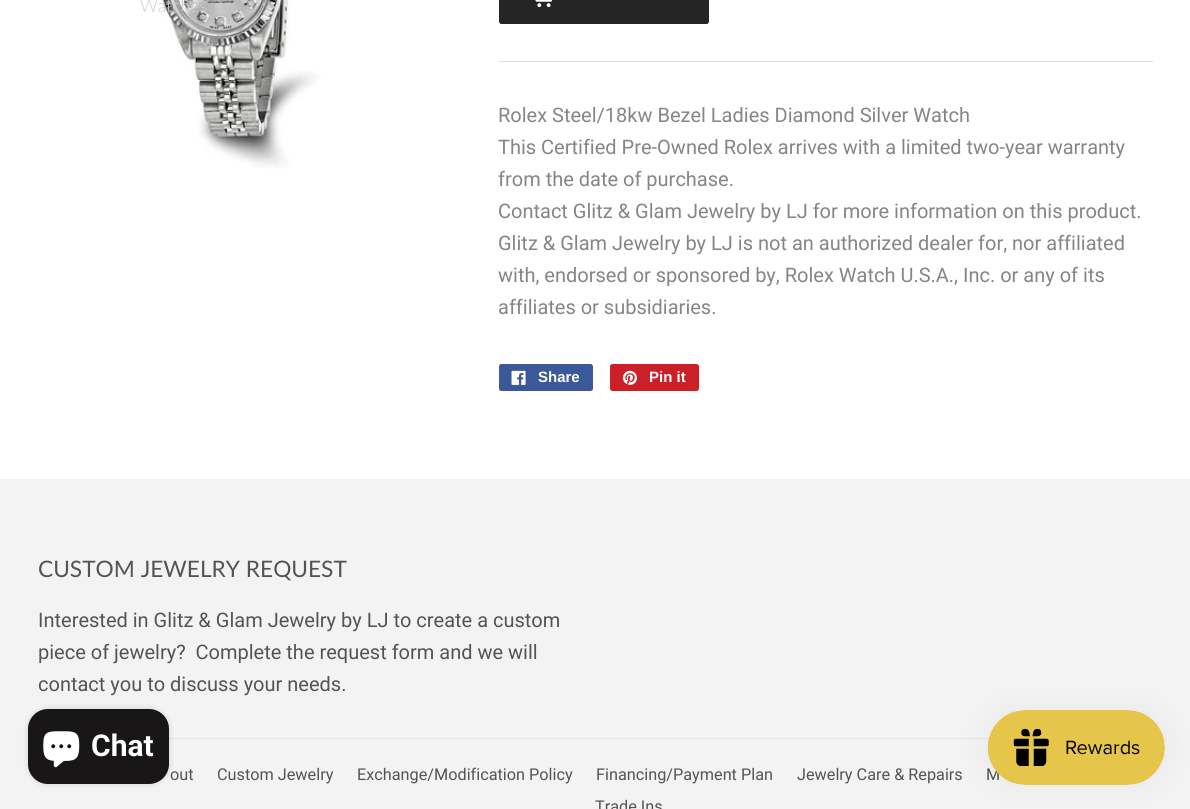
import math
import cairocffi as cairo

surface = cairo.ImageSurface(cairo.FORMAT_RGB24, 1190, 809)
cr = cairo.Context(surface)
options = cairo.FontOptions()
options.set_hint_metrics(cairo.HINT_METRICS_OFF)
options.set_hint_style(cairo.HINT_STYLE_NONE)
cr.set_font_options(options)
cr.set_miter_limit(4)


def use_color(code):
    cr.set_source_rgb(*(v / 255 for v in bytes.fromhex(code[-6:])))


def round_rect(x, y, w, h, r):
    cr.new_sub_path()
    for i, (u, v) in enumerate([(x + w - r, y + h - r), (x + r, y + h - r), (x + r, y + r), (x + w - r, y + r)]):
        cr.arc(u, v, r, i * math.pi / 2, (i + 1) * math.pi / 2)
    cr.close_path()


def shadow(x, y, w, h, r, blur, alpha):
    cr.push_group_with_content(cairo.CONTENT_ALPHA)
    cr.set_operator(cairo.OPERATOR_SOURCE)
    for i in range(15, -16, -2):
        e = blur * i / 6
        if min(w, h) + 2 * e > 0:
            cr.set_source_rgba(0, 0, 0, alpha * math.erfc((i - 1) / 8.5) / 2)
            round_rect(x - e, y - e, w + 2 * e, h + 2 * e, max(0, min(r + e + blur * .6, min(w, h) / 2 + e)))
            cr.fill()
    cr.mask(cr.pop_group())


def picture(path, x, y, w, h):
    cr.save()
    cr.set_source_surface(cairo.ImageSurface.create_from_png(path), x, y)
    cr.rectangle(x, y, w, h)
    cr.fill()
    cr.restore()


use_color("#ffffff")
cr.paint()
picture("img1.png", 162, 0, 159, 169)
cr.select_font_face("Lato Light")
cr.set_font_size(17.5)
use_color("#cecece")
cr.move_to(140, 12)
cr.show_text("Watches")
use_color("#252525")
round_rect(499, -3, 210, 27, 2.5)
cr.fill()
picture("img2.png", 535, 0, 17, 8)
use_color("#dedede")
cr.rectangle(499, 61, 654, 1)
cr.fill()
cr.select_font_face("Roboto")
cr.set_font_size(20)
use_color("#858585")
cr.move_to(498, 122)
cr.show_text("Rolex Steel/18kw Bezel Ladies Diamond Silver Watch")
cr.move_to(498, 154)
cr.show_text("This Certified Pre-Owned Rolex arrives with a limited two-year warranty")
cr.move_to(498, 186)
cr.show_text("from the date of purchase.")
cr.move_to(498, 218)
cr.show_text("Contact Glitz & Glam Jewelry by LJ for more information on this product.")
cr.move_to(498, 250)
cr.show_text("Glitz & Glam Jewelry by LJ is not an authorized dealer for, nor affiliated")
cr.move_to(498, 282)
cr.show_text("with, endorsed or sponsored by, Rolex Watch U.S.A., Inc. or any of its")
cr.move_to(498, 314)
cr.show_text("affiliates or subsidiaries.")
use_color("#3b5998")
round_rect(499, 364, 94, 27, 2.5)
cr.fill()
picture("img3.png", 511, 370, 15, 15)
cr.select_font_face("Liberation Sans", cairo.FONT_SLANT_NORMAL, cairo.FONT_WEIGHT_BOLD)
cr.set_font_size(15)
use_color("#ffffff")
cr.move_to(538, 382)
cr.show_text("Share")
use_color("#cb2027")
round_rect(610, 364, 89, 27, 2.5)
cr.fill()
picture("img4.png", 622, 370, 15, 15)
use_color("#ffffff")
cr.move_to(649, 382)
cr.show_text("Pin it")
use_color("#f3f3f3")
cr.rectangle(0, 479, 1190, 330)
cr.fill()
cr.select_font_face("Lato")
cr.set_font_size(22.7)
use_color("#545454")
cr.move_to(38, 577)
cr.show_text("CUSTOM JEWELRY REQUEST")
cr.select_font_face("Roboto")
cr.set_font_size(20)
cr.move_to(38, 627)
cr.show_text("Interested in Glitz & Glam Jewelry by LJ to create a custom")
cr.move_to(38, 659)
cr.show_text("piece of jewelry?  Complete the request form and we will")
cr.move_to(38, 691)
cr.show_text("contact you to discuss your needs.")
use_color("#e6e6e6")
cr.rectangle(169, 738, 820, 1)
cr.fill()
cr.set_font_size(16.25)
use_color("#545454")
cr.move_to(170, 780)
cr.show_text("out")
cr.move_to(217, 780)
cr.show_text("Custom Jewelry")
cr.move_to(357, 780)
cr.show_text("Exchange/Modification Policy")
cr.move_to(596, 780)
cr.show_text("Financing/Payment Plan")
cr.move_to(797, 780)
cr.show_text("Jewelry Care & Repairs")
cr.move_to(986, 780)
cr.show_text("M")
cr.move_to(595, 812)
cr.show_text("Trade Ins")
use_color("#000000")
shadow(988, 710, 177, 75, 37.5, 15.5, 0.05)
picture("img5.png", 987, 710, 178, 75)
shadow(28, 709, 141, 75, 20, 3, 0.15)
use_color("#181616")
round_rect(28, 709, 141, 75, 20)
cr.fill()
picture("img6.png", 43, 731, 37, 37)
cr.select_font_face("Roboto", cairo.FONT_SLANT_NORMAL, cairo.FONT_WEIGHT_BOLD)
cr.set_font_size(30)
use_color("#ffffff")
cr.move_to(91, 756)
cr.show_text("Chat")
surface.write_to_png("result.png")
